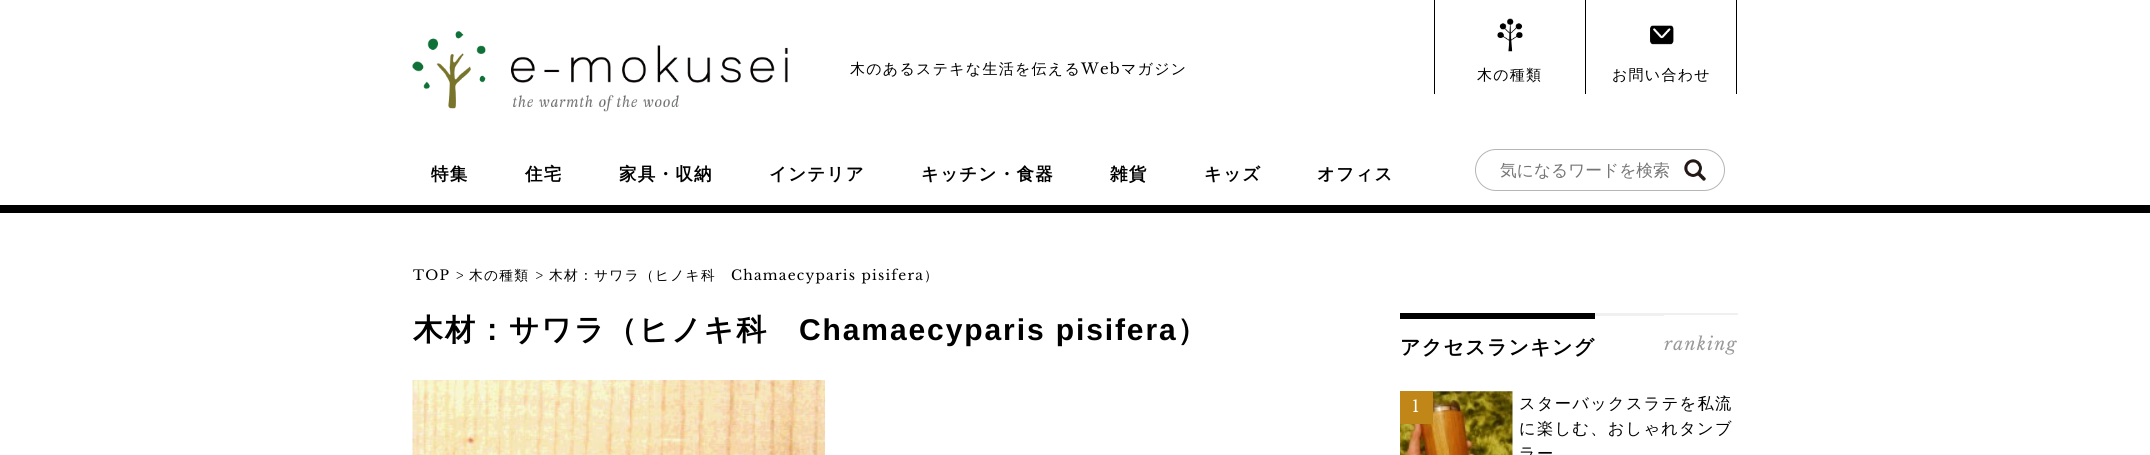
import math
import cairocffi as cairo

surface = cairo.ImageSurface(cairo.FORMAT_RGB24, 2150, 455)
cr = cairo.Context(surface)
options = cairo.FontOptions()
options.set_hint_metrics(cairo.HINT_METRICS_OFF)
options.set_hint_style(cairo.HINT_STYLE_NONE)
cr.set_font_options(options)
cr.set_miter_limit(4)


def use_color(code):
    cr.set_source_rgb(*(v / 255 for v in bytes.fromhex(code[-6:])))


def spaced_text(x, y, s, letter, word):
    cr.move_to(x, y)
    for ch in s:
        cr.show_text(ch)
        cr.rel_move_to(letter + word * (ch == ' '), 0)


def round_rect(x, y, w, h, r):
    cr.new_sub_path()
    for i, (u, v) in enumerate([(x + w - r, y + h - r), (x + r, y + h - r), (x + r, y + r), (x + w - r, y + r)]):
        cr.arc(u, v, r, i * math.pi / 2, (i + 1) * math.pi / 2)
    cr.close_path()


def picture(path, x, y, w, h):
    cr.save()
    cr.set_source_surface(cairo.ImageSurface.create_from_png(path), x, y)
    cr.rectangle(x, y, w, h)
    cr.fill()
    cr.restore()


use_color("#ffffff")
cr.paint()
picture("img1.png", 412, 31, 376, 81)
cr.select_font_face("WenQuanYi Zen Hei Medium")
cr.set_font_size(15)
use_color("#000000")
spaced_text(850, 74, "木のあるステキな生活を伝える", 1.25, 0)
cr.select_font_face("Libre Baskerville")
spaced_text(1081, 74, "Web", 1.25, 0)
cr.select_font_face("WenQuanYi Zen Hei Medium")
spaced_text(1121, 74, "マガジン", 1.25, 0)
picture("img2.png", 1497, 18, 26, 34)
cr.rectangle(1434, 0, 1, 94)
cr.fill()
spaced_text(1477, 80, "木の種類", 1.25, 0)
picture("img3.png", 1650, 25, 24, 20)
cr.rectangle(1736, 0, 1, 94)
cr.fill()
cr.rectangle(1585, 0, 1, 94)
cr.fill()
spaced_text(1612, 80, "お問い合わせ", 1.25, 0)
cr.rectangle(0, 205, 2150, 8)
cr.fill()
cr.select_font_face("WenQuanYi Zen Hei", cairo.FONT_SLANT_NORMAL, cairo.FONT_WEIGHT_BOLD)
cr.set_font_size(17.5)
spaced_text(431, 180, "特集", 1.25, 0)
spaced_text(525, 180, "住宅", 1.25, 0)
spaced_text(619, 180, "家具・収納", 1.25, 0)
spaced_text(769, 180, "インテリア", 1.25, 0)
spaced_text(921, 180, "キッチン・食器", 1.25, 0)
spaced_text(1110, 180, "雑貨", 1.25, 0)
spaced_text(1204, 180, "キッズ", 1.25, 0)
spaced_text(1317, 180, "オフィス", 1.25, 0)
round_rect(1475.5, 149.5, 249, 41, 20.5)
use_color("#b5b5b5")
cr.set_line_width(1)
cr.stroke()
cr.select_font_face("WenQuanYi Zen Hei Medium")
cr.set_font_size(16.75)
use_color("#757575")
cr.move_to(1500, 176)
cr.show_text("気になるワードを検索")
picture("img4.png", 1684, 159, 22, 22)
cr.select_font_face("Libre Baskerville")
cr.set_font_size(13.75)
use_color("#000000")
spaced_text(413, 280, "TOP >", 1.25, 0)
cr.select_font_face("WenQuanYi Zen Hei Medium")
spaced_text(469, 280, "木の種類", 1.25, 0)
cr.select_font_face("Libre Baskerville")
spaced_text(535, 280, ">", 1.25, 0)
cr.select_font_face("WenQuanYi Zen Hei Medium")
spaced_text(549, 280, "木材：サワラ（ヒノキ科", 1.25, 0)
cr.select_font_face("Libre Baskerville")
spaced_text(731, 280, "Chamaecyparis pisifera", 1.25, 0)
cr.select_font_face("WenQuanYi Zen Hei Medium")
spaced_text(924, 280, "）", 1.25, 0)
cr.select_font_face("WenQuanYi Zen Hei", cairo.FONT_SLANT_NORMAL, cairo.FONT_WEIGHT_BOLD)
cr.set_font_size(30)
spaced_text(413, 340, "木材：サワラ（ヒノキ科", 1.9, 0)
cr.select_font_face("Liberation Sans", cairo.FONT_SLANT_NORMAL, cairo.FONT_WEIGHT_BOLD)
spaced_text(799, 340, "Chamaecyparis pisifera", 1.9, 0)
cr.select_font_face("WenQuanYi Zen Hei", cairo.FONT_SLANT_NORMAL, cairo.FONT_WEIGHT_BOLD)
spaced_text(1177, 340, "）", 1.9, 0)
picture("img5.png", 412, 380, 413, 75)
use_color("#f0f0f0")
cr.rectangle(1595, 313, 143, 3)
cr.fill()
use_color("#000000")
cr.rectangle(1400, 313, 195, 6)
cr.fill()
cr.set_font_size(20)
spaced_text(1400, 354, "アクセスランキング", 1.25, 0)
use_color("#ffffff")
cr.rectangle(1664, 315, 74, 1)
cr.fill()
cr.select_font_face("Libre Baskerville", cairo.FONT_SLANT_ITALIC)
cr.set_font_size(17.5)
use_color("#999999")
spaced_text(1664, 350, "ranking", 1.25, 0)
picture("img6.png", 1400, 391, 113, 64)
cr.select_font_face("WenQuanYi Zen Hei Medium")
cr.set_font_size(16.25)
use_color("#000000")
spaced_text(1519, 409, "スターバックスラテを私流", 1.25, 0)
use_color("#c08718")
cr.rectangle(1400, 391, 33, 33)
cr.fill()
cr.select_font_face("Libre Baskerville")
use_color("#ffffff")
spaced_text(1412, 412, "1", 1.25, 0)
cr.select_font_face("WenQuanYi Zen Hei Medium")
use_color("#000000")
spaced_text(1519, 434, "に楽しむ、おしゃれタンブ", 1.25, 0)
spaced_text(1519, 459, "ラー", 1.25, 0)
surface.write_to_png("result.png")
